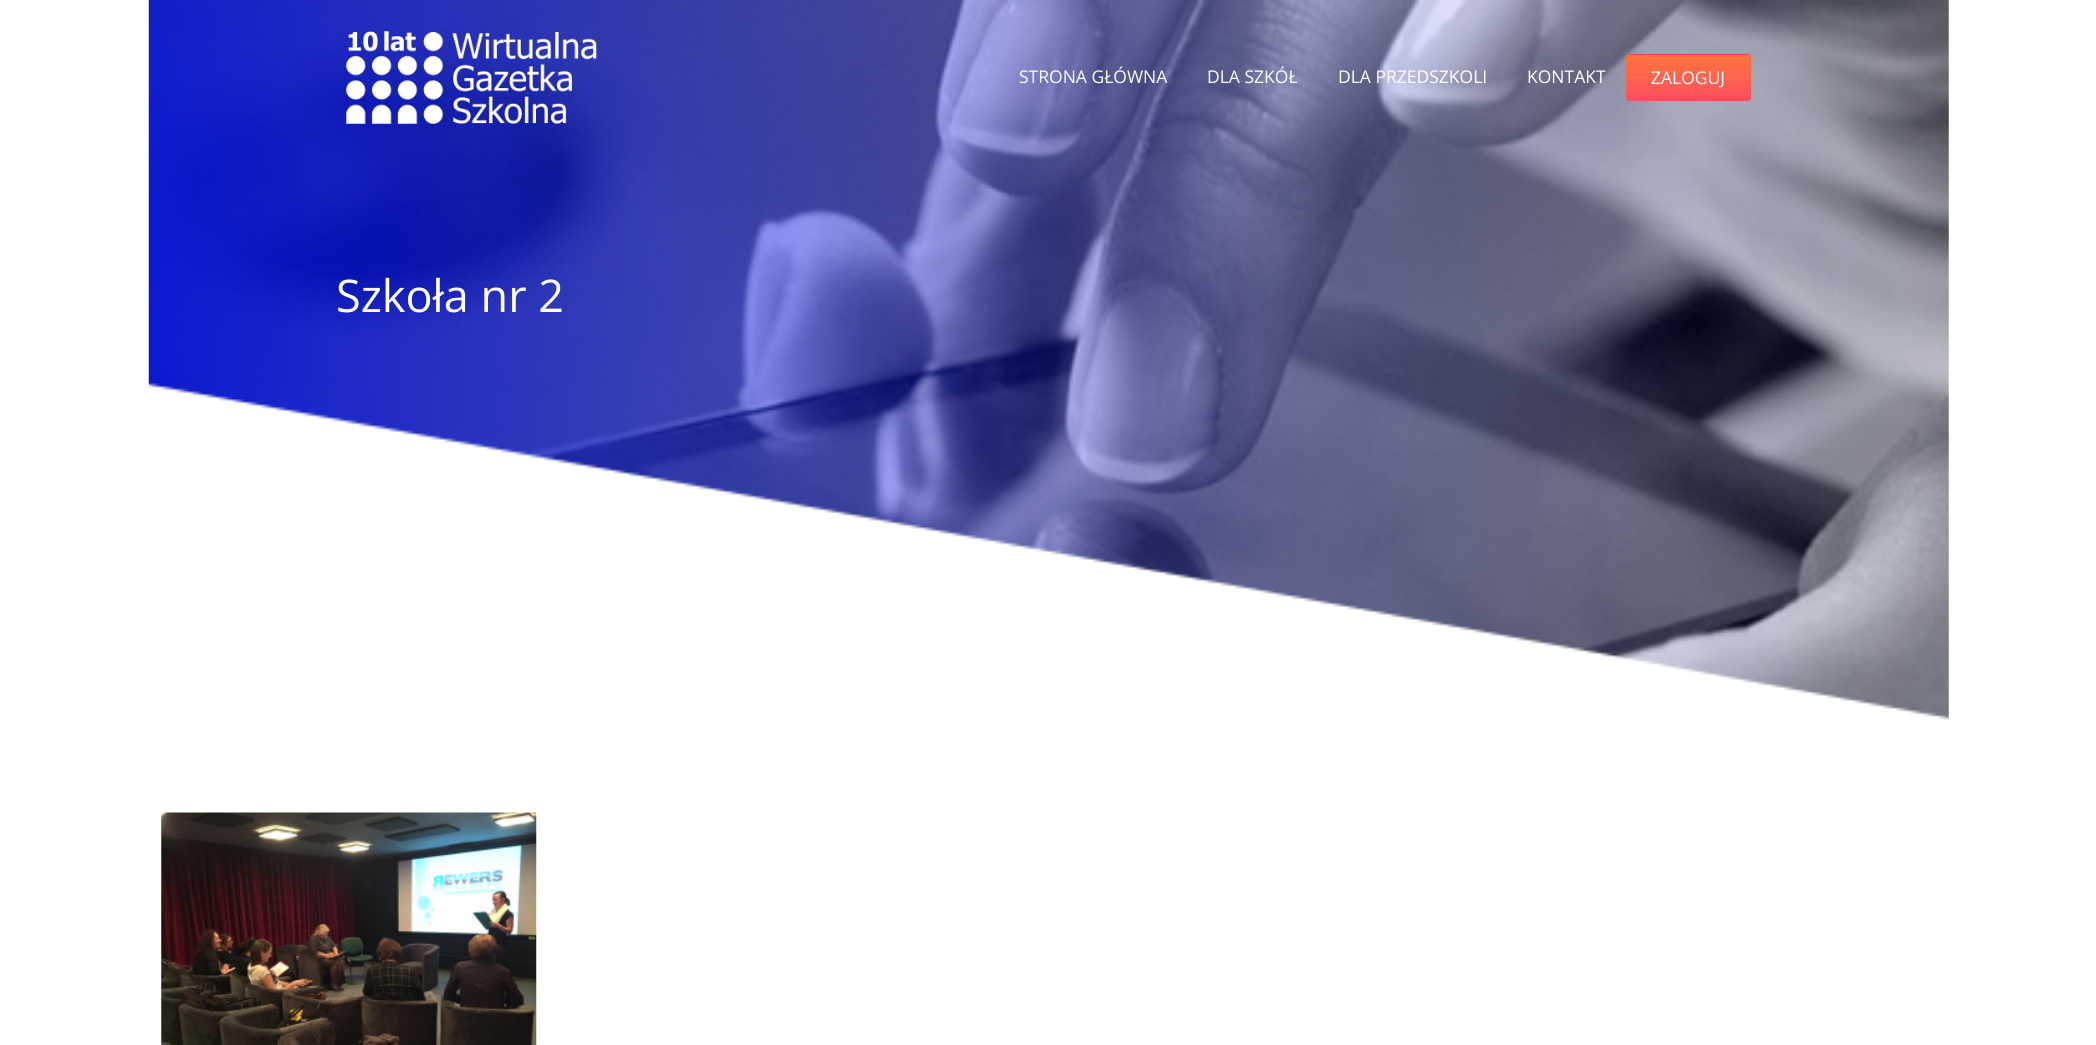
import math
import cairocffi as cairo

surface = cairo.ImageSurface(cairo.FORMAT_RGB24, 2096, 1045)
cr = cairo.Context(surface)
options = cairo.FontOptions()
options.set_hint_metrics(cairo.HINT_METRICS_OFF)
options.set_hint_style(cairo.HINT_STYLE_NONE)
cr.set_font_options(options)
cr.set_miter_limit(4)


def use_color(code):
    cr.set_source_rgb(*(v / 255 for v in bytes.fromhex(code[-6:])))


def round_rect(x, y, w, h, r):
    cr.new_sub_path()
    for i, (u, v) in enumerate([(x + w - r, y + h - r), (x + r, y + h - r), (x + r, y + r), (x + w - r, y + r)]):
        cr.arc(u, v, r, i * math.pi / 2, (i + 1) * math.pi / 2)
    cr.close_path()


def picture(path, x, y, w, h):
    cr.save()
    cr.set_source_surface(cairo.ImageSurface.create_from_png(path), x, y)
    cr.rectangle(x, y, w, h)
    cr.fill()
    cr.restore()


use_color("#ffffff")
cr.paint()
picture("img1.png", 148, 0, 1801, 720)
picture("img2.png", 346, 31, 251, 93)
cr.select_font_face("Open Sans")
cr.set_font_size(17.5)
use_color("#ffffff")
cr.move_to(1019, 83)
cr.show_text("STRONA GŁÓWNA")
cr.move_to(1207, 83)
cr.show_text("DLA SZKÓŁ")
cr.move_to(1338, 83)
cr.show_text("DLA PRZEDSZKOLI")
cr.move_to(1527, 83)
cr.show_text("KONTAKT")
use_color("#fc6f42")
round_rect(1626, 54, 125, 47, 4)
cr.fill()
picture("img3.png", 1626, 53, 126, 49)
use_color("#ffffff")
cr.move_to(1651, 84)
cr.show_text("ZALOGUJ")
cr.set_font_size(45)
cr.move_to(336, 312)
cr.show_text("Szkoła nr 2")
picture("img4.png", 161, 812, 376, 233)
surface.write_to_png("result.png")
